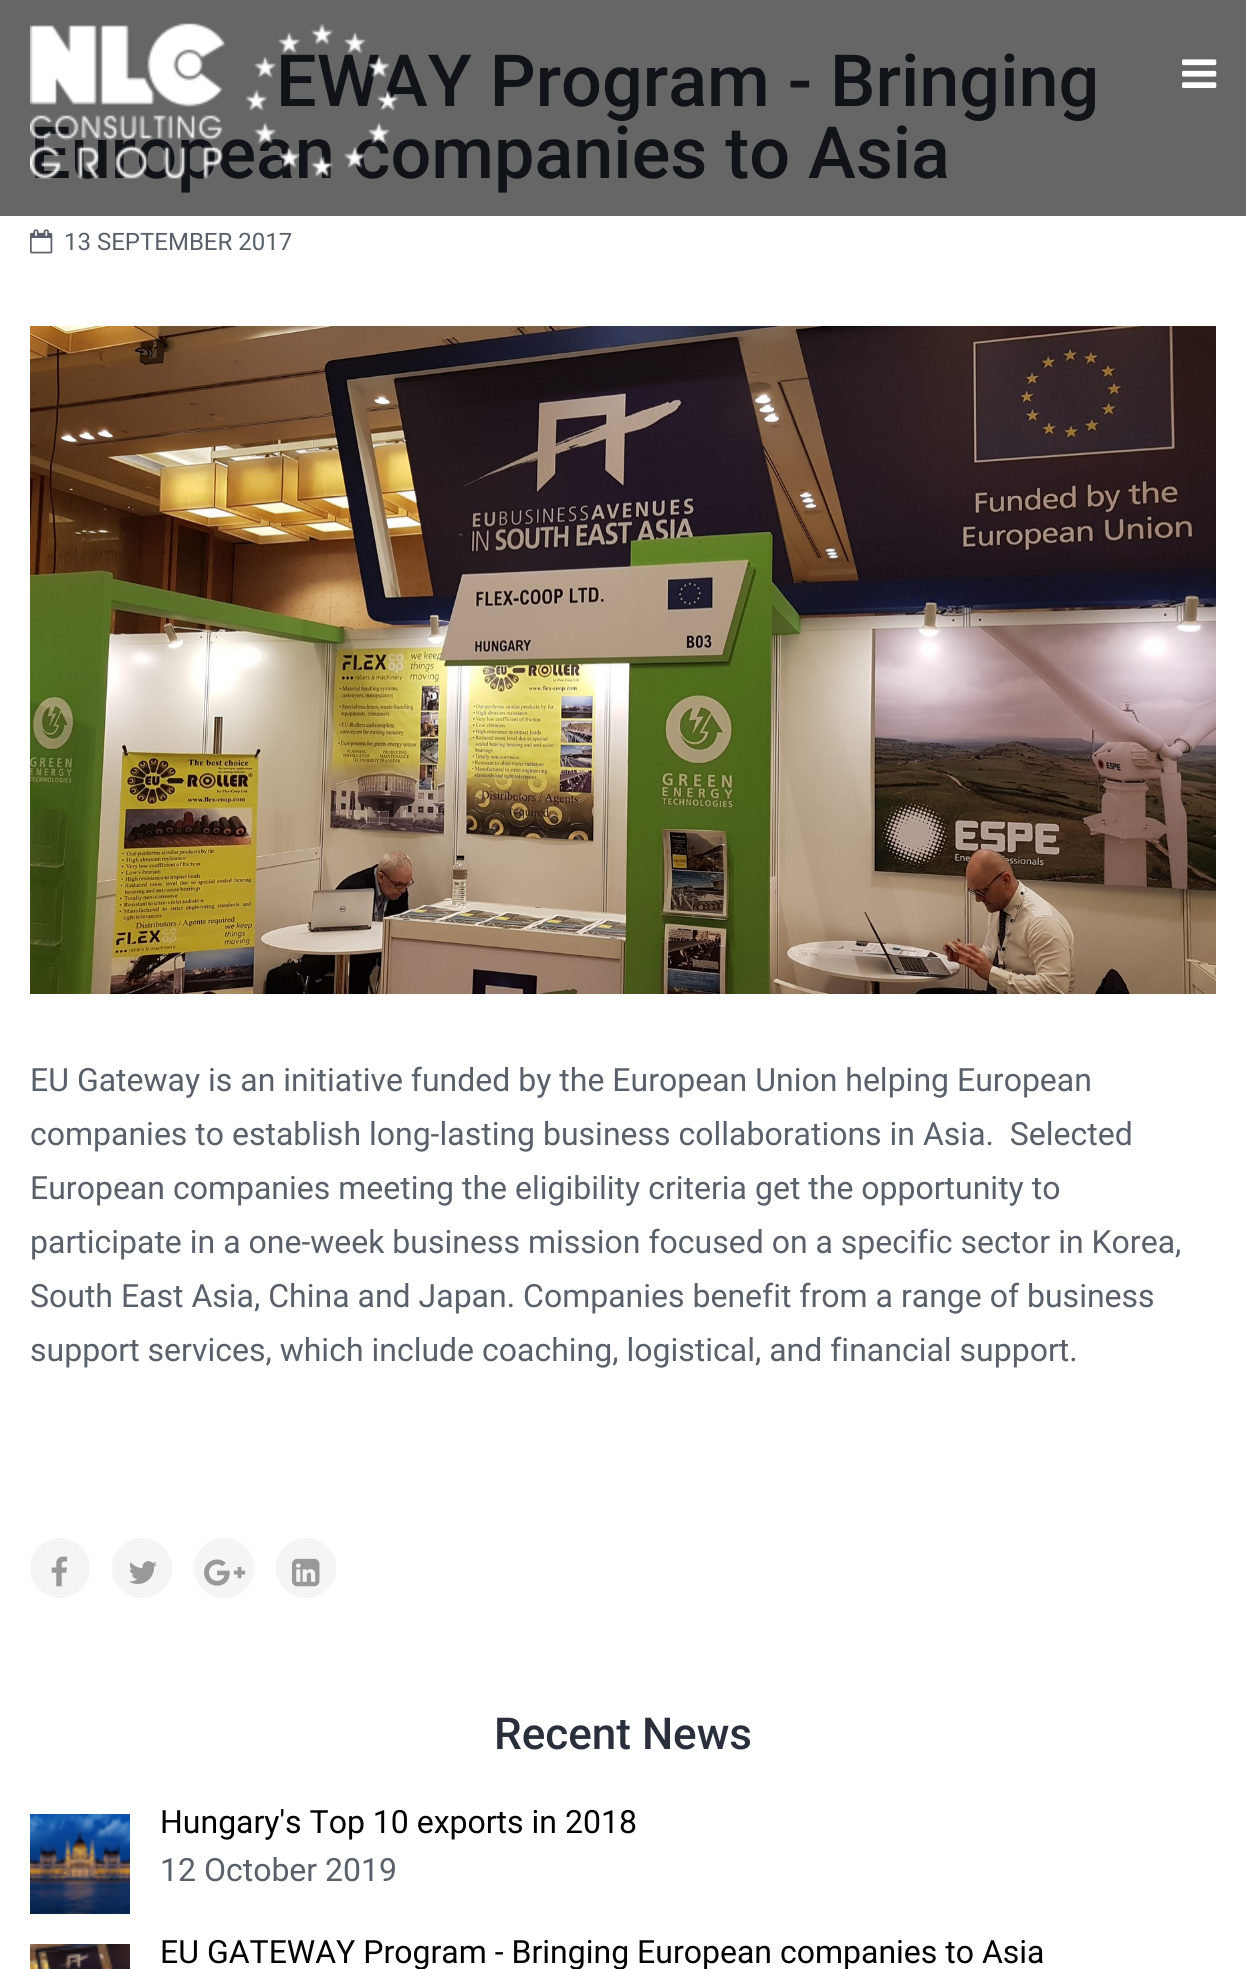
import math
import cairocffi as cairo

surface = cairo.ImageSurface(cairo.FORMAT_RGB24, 1246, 1969)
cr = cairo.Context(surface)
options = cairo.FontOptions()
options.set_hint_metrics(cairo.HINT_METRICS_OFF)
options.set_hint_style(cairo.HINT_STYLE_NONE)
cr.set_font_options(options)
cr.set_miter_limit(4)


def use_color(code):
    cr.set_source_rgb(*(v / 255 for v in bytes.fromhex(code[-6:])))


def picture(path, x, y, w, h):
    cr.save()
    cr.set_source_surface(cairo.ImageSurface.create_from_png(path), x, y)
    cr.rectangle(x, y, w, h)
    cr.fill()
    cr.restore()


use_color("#ffffff")
cr.paint()
use_color("#666666")
cr.rectangle(0, 0, 1246, 216)
cr.fill()
cr.select_font_face("Roboto Medium")
cr.set_font_size(72)
use_color("#101318")
cr.move_to(276, 106)
cr.show_text("EWAY Program - Bringing")
cr.move_to(30, 178)
cr.show_text("European companies to Asia")
picture("img1.png", 30, 23, 368, 156)
picture("img2.png", 1182, 59, 35, 29)
picture("img3.png", 30, 229, 23, 25)
cr.select_font_face("Roboto")
cr.set_font_size(24)
use_color("#59606a")
cr.move_to(64, 250)
cr.show_text("13 SEPTEMBER 2017")
picture("img4.png", 30, 326, 1186, 668)
cr.set_font_size(32)
cr.move_to(30, 1091)
cr.show_text("EU Gateway is an initiative funded by the European Union helping European")
cr.move_to(30, 1145)
cr.show_text("companies to establish long-lasting business collaborations in Asia.  Selected")
cr.move_to(30, 1199)
cr.show_text("European companies meeting the eligibility criteria get the opportunity to")
cr.move_to(30, 1253)
cr.show_text("participate in a one-week business mission focused on a specific sector in Korea,")
cr.move_to(30, 1307)
cr.show_text("South East Asia, China and Japan. Companies benefit from a range of business")
cr.move_to(30, 1361)
cr.show_text("support services, which include coaching, logistical, and financial support.")
use_color("#f5f5f5")
cr.new_path()
cr.arc(60, 1568, 30, 0, 2 * math.pi)
cr.fill()
picture("img5.png", 51, 1556, 17, 31)
cr.arc(142, 1568, 30, 0, 2 * math.pi)
cr.fill()
picture("img6.png", 129, 1561, 28, 23)
cr.arc(224, 1568, 30, 0, 2 * math.pi)
cr.fill()
picture("img7.png", 204, 1559, 42, 27)
cr.arc(306, 1568, 30, 0, 2 * math.pi)
cr.fill()
picture("img8.png", 292, 1558, 28, 29)
cr.select_font_face("Roboto Medium")
cr.set_font_size(44)
use_color("#292f3b")
cr.move_to(494, 1749)
cr.show_text("Recent News")
picture("img9.png", 30, 1814, 100, 100)
cr.select_font_face("Roboto")
cr.set_font_size(32)
use_color("#000000")
cr.move_to(160, 1833)
cr.show_text("Hungary's Top 10 exports in 2018")
use_color("#59606a")
cr.move_to(160, 1881)
cr.show_text("12 October 2019")
picture("img10.png", 30, 1944, 100, 25)
use_color("#000000")
cr.move_to(160, 1963)
cr.show_text("EU GATEWAY Program - Bringing European companies to Asia")
surface.write_to_png("result.png")
